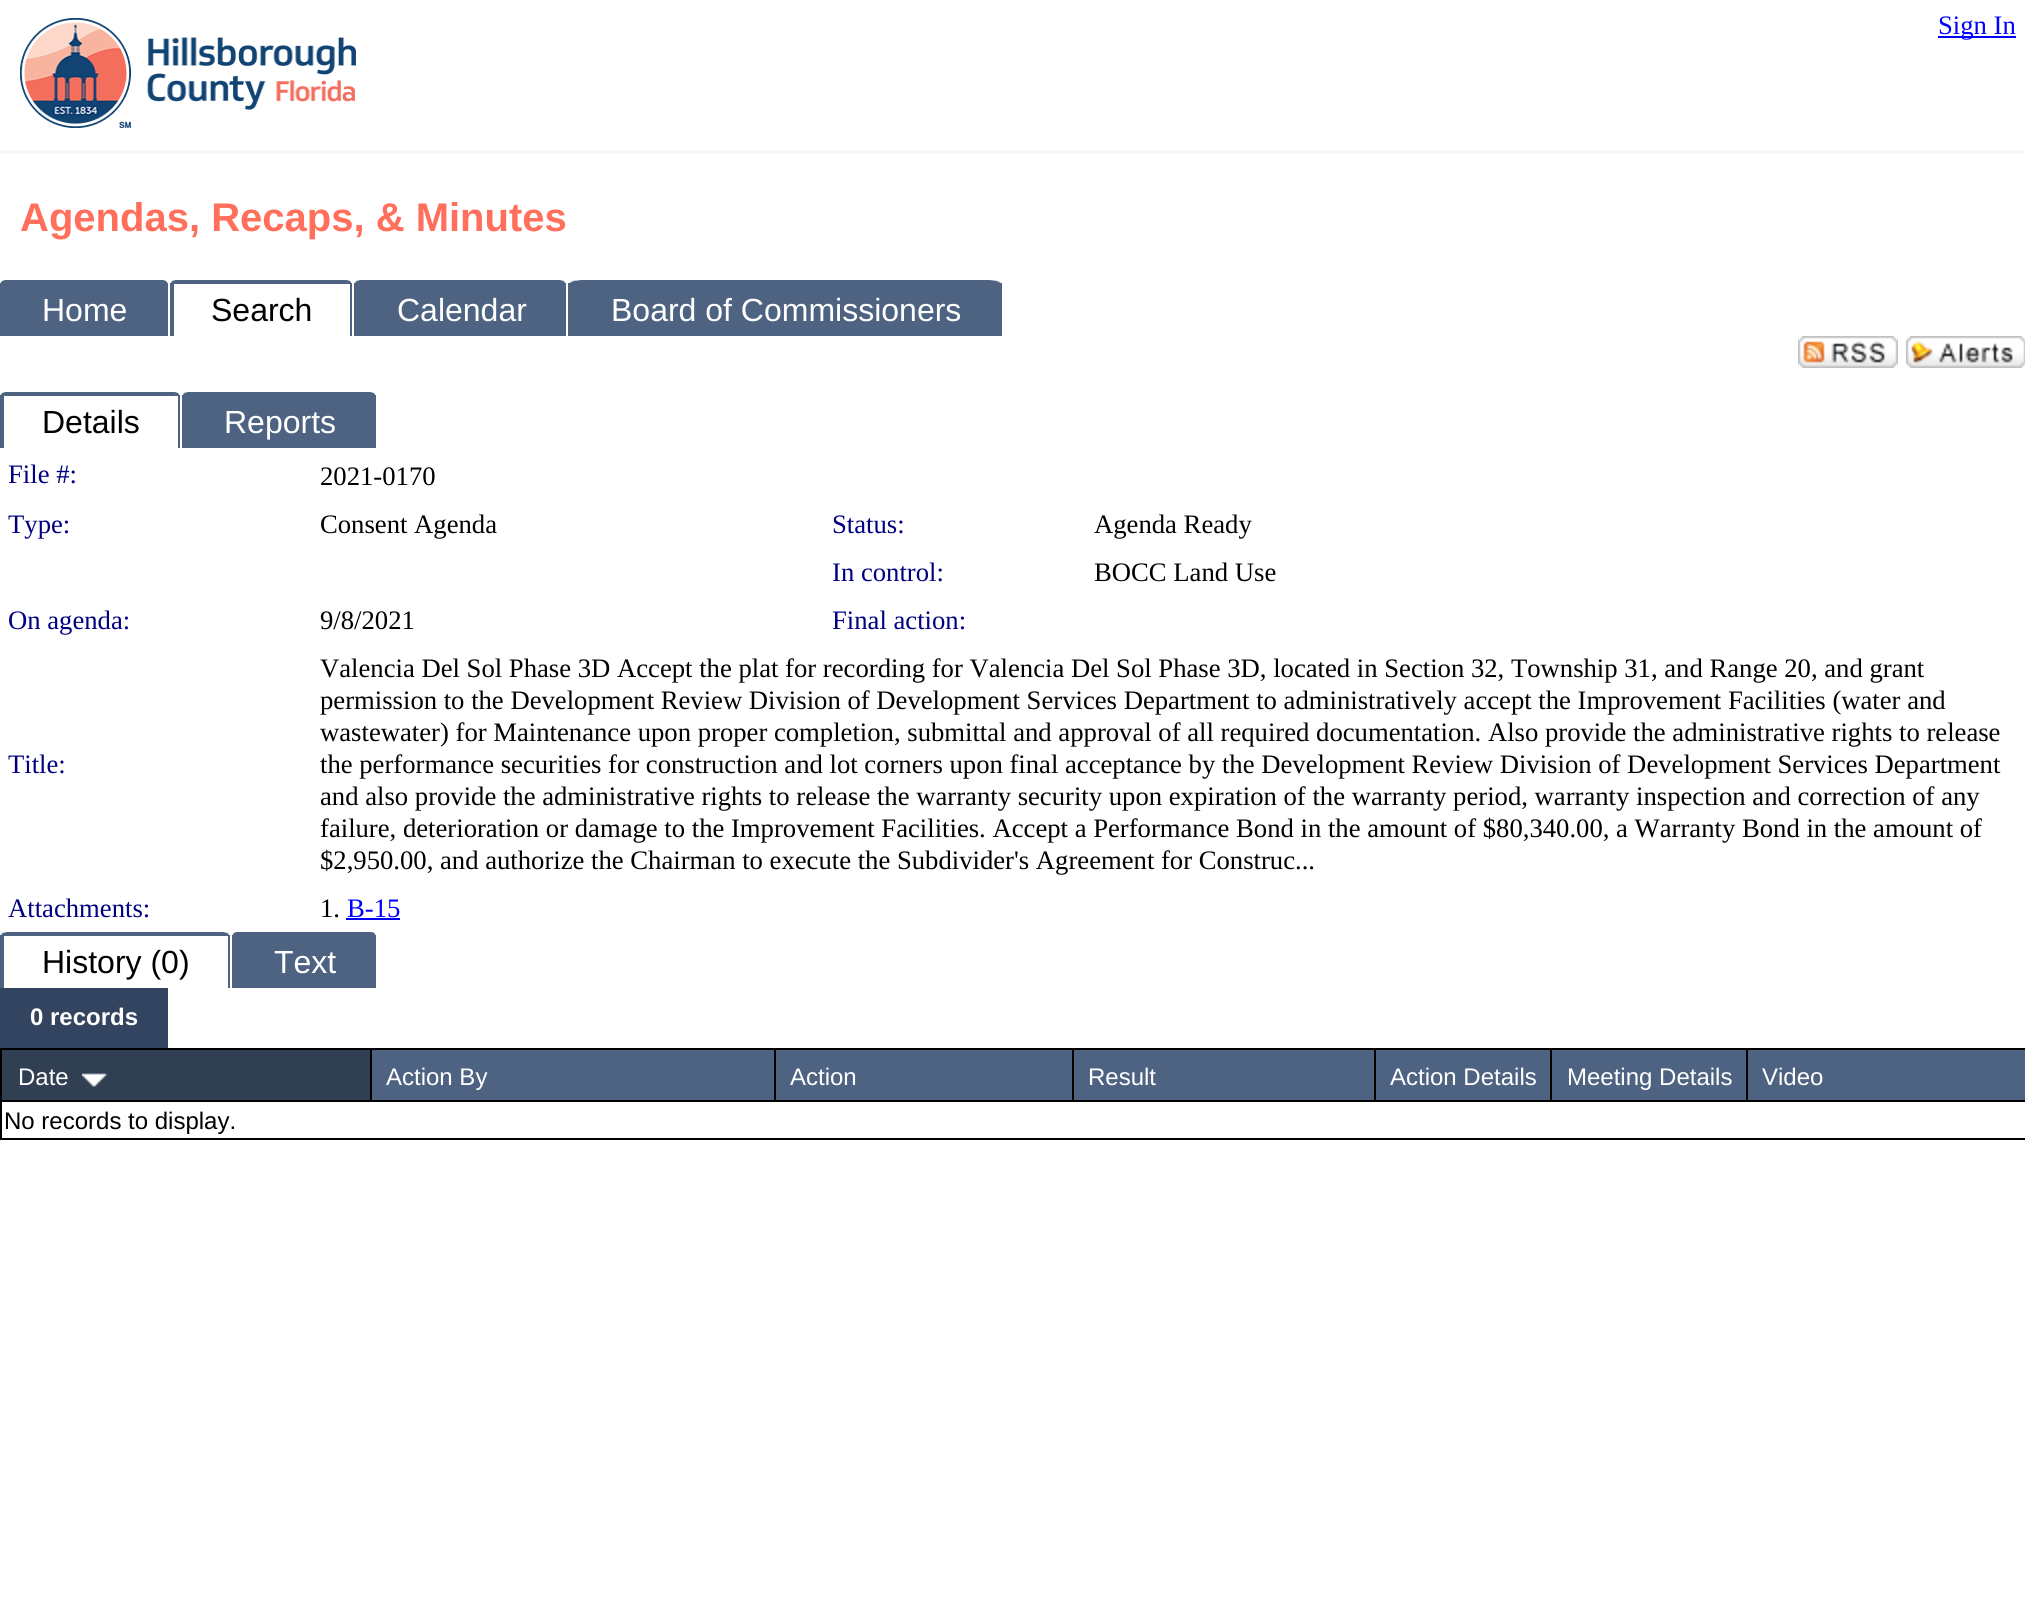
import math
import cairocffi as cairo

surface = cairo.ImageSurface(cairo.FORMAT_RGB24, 2025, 1615)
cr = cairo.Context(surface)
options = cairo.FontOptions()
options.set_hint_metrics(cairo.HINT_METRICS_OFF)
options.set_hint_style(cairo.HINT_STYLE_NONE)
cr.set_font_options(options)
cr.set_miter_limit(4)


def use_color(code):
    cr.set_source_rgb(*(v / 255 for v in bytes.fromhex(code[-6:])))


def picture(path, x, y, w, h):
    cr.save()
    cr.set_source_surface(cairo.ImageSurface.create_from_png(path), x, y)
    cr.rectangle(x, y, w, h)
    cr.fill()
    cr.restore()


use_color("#ffffff")
cr.paint()
use_color("#0000ff")
cr.rectangle(1938, 36, 78, 2)
cr.fill()
cr.select_font_face("Liberation Serif")
cr.set_font_size(26.67)
cr.move_to(1938, 34)
cr.show_text("Sign In")
use_color("#f5f7f8")
cr.rectangle(0, 150, 2025, 4)
cr.fill()
picture("img1.png", 20, 18, 336, 110)
cr.select_font_face("Liberation Sans", cairo.FONT_SLANT_NORMAL, cairo.FONT_WEIGHT_BOLD)
cr.set_font_size(40)
use_color("#ff6f5b")
cr.move_to(20, 231)
cr.show_text("Agendas, Recaps, & Minutes")
picture("img2.png", 0, 280, 168, 56)
cr.select_font_face("Liberation Sans")
cr.set_font_size(32)
use_color("#ffffff")
cr.move_to(42, 321)
cr.show_text("Home")
picture("img3.png", 170, 280, 182, 56)
cr.rectangle(174, 284, 176, 52)
cr.fill()
use_color("#000000")
cr.move_to(211, 321)
cr.show_text("Search")
picture("img4.png", 354, 280, 212, 56)
use_color("#ffffff")
cr.move_to(397, 321)
cr.show_text("Calendar")
picture("img5.png", 568, 280, 434, 56)
cr.move_to(611, 321)
cr.show_text("Board of Commissioners")
picture("img6.png", 1798, 336, 100, 32)
picture("img7.png", 1906, 336, 119, 32)
picture("img8.png", 0, 392, 180, 56)
cr.rectangle(4, 396, 174, 52)
cr.fill()
use_color("#000000")
cr.move_to(42, 433)
cr.show_text("Details")
picture("img9.png", 182, 392, 194, 56)
use_color("#ffffff")
cr.move_to(224, 433)
cr.show_text("Reports")
cr.select_font_face("Liberation Serif")
cr.set_font_size(26.67)
use_color("#000080")
cr.move_to(8, 483)
cr.show_text("File #:")
use_color("#000000")
cr.move_to(320, 485)
cr.show_text("2021-0170")
use_color("#000080")
cr.move_to(8, 533)
cr.show_text("Type:")
use_color("#000000")
cr.move_to(320, 533)
cr.show_text("Consent Agenda")
use_color("#000080")
cr.move_to(832, 533)
cr.show_text("Status:")
use_color("#000000")
cr.move_to(1094, 533)
cr.show_text("Agenda Ready")
use_color("#000080")
cr.move_to(832, 581)
cr.show_text("In control:")
use_color("#000000")
cr.move_to(1094, 581)
cr.show_text("BOCC Land Use")
use_color("#000080")
cr.move_to(8, 629)
cr.show_text("On agenda:")
use_color("#000000")
cr.move_to(320, 629)
cr.show_text("9/8/2021")
use_color("#000080")
cr.move_to(832, 629)
cr.show_text("Final action:")
cr.move_to(8, 773)
cr.show_text("Title:")
use_color("#000000")
cr.move_to(320, 677)
cr.show_text("Valencia Del Sol Phase 3D Accept the plat for recording for Valencia Del Sol Phase 3D, located in Section 32, Township 31, and Range 20, and grant")
cr.move_to(320, 709)
cr.show_text("permission to the Development Review Division of Development Services Department to administratively accept the Improvement Facilities (water and")
cr.move_to(320, 741)
cr.show_text("wastewater) for Maintenance upon proper completion, submittal and approval of all required documentation. Also provide the administrative rights to release")
cr.move_to(320, 773)
cr.show_text("the performance securities for construction and lot corners upon final acceptance by the Development Review Division of Development Services Department")
cr.move_to(320, 805)
cr.show_text("and also provide the administrative rights to release the warranty security upon expiration of the warranty period, warranty inspection and correction of any")
cr.move_to(320, 837)
cr.show_text("failure, deterioration or damage to the Improvement Facilities. Accept a Performance Bond in the amount of $80,340.00, a Warranty Bond in the amount of")
cr.move_to(320, 869)
cr.show_text("$2,950.00, and authorize the Chairman to execute the Subdivider's Agreement for Construc...")
use_color("#000080")
cr.move_to(8, 917)
cr.show_text("Attachments:")
use_color("#000000")
cr.move_to(320, 917)
cr.show_text("1.")
use_color("#0000ff")
cr.move_to(347, 917)
cr.show_text("B-15")
cr.rectangle(346, 918, 54, 2)
cr.fill()
picture("img10.png", 0, 932, 230, 56)
use_color("#ffffff")
cr.rectangle(4, 936, 224, 52)
cr.fill()
cr.select_font_face("Liberation Sans")
cr.set_font_size(32)
use_color("#000000")
cr.move_to(42, 973)
cr.show_text("History (0)")
picture("img11.png", 232, 932, 144, 56)
use_color("#ffffff")
cr.move_to(274, 973)
cr.show_text("Text")
use_color("#334460")
cr.rectangle(0, 988, 168, 60)
cr.fill()
cr.select_font_face("Liberation Sans", cairo.FONT_SLANT_NORMAL, cairo.FONT_WEIGHT_BOLD)
cr.set_font_size(24)
use_color("#ffffff")
cr.move_to(30, 1025)
cr.show_text("0 records")
cr.rectangle(1, 1049, 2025, 90)
use_color("#000000")
cr.stroke()
use_color("#313f53")
cr.rectangle(2, 1050, 368, 50)
cr.fill()
use_color("#000000")
cr.rectangle(2, 1100, 2023, 2)
cr.fill()
cr.select_font_face("Liberation Sans")
use_color("#ffffff")
cr.move_to(18, 1085)
cr.show_text("Date")
picture("img12.png", 82, 1073, 25, 14)
use_color("#4e6381")
cr.rectangle(372, 1050, 402, 50)
cr.fill()
use_color("#000000")
cr.rectangle(370, 1050, 2, 52)
cr.fill()
use_color("#ffffff")
cr.move_to(386, 1085)
cr.show_text("Action By")
use_color("#4e6381")
cr.rectangle(776, 1050, 296, 50)
cr.fill()
use_color("#000000")
cr.rectangle(774, 1050, 2, 52)
cr.fill()
use_color("#ffffff")
cr.move_to(790, 1085)
cr.show_text("Action")
use_color("#4e6381")
cr.rectangle(1074, 1050, 300, 50)
cr.fill()
use_color("#000000")
cr.rectangle(1072, 1050, 2, 52)
cr.fill()
use_color("#ffffff")
cr.move_to(1088, 1085)
cr.show_text("Result")
use_color("#4e6381")
cr.rectangle(1376, 1050, 174, 50)
cr.fill()
use_color("#000000")
cr.rectangle(1374, 1050, 2, 52)
cr.fill()
use_color("#ffffff")
cr.move_to(1390, 1085)
cr.show_text("Action Details")
use_color("#4e6381")
cr.rectangle(1552, 1050, 194, 50)
cr.fill()
use_color("#000000")
cr.rectangle(1550, 1050, 2, 52)
cr.fill()
use_color("#ffffff")
cr.move_to(1567, 1085)
cr.show_text("Meeting Details")
use_color("#4e6381")
cr.rectangle(1748, 1050, 277, 50)
cr.fill()
use_color("#000000")
cr.rectangle(1746, 1050, 2, 52)
cr.fill()
use_color("#ffffff")
cr.move_to(1762, 1085)
cr.show_text("Video")
use_color("#000000")
cr.move_to(4, 1129)
cr.show_text("No records to display.")
surface.write_to_png("result.png")
